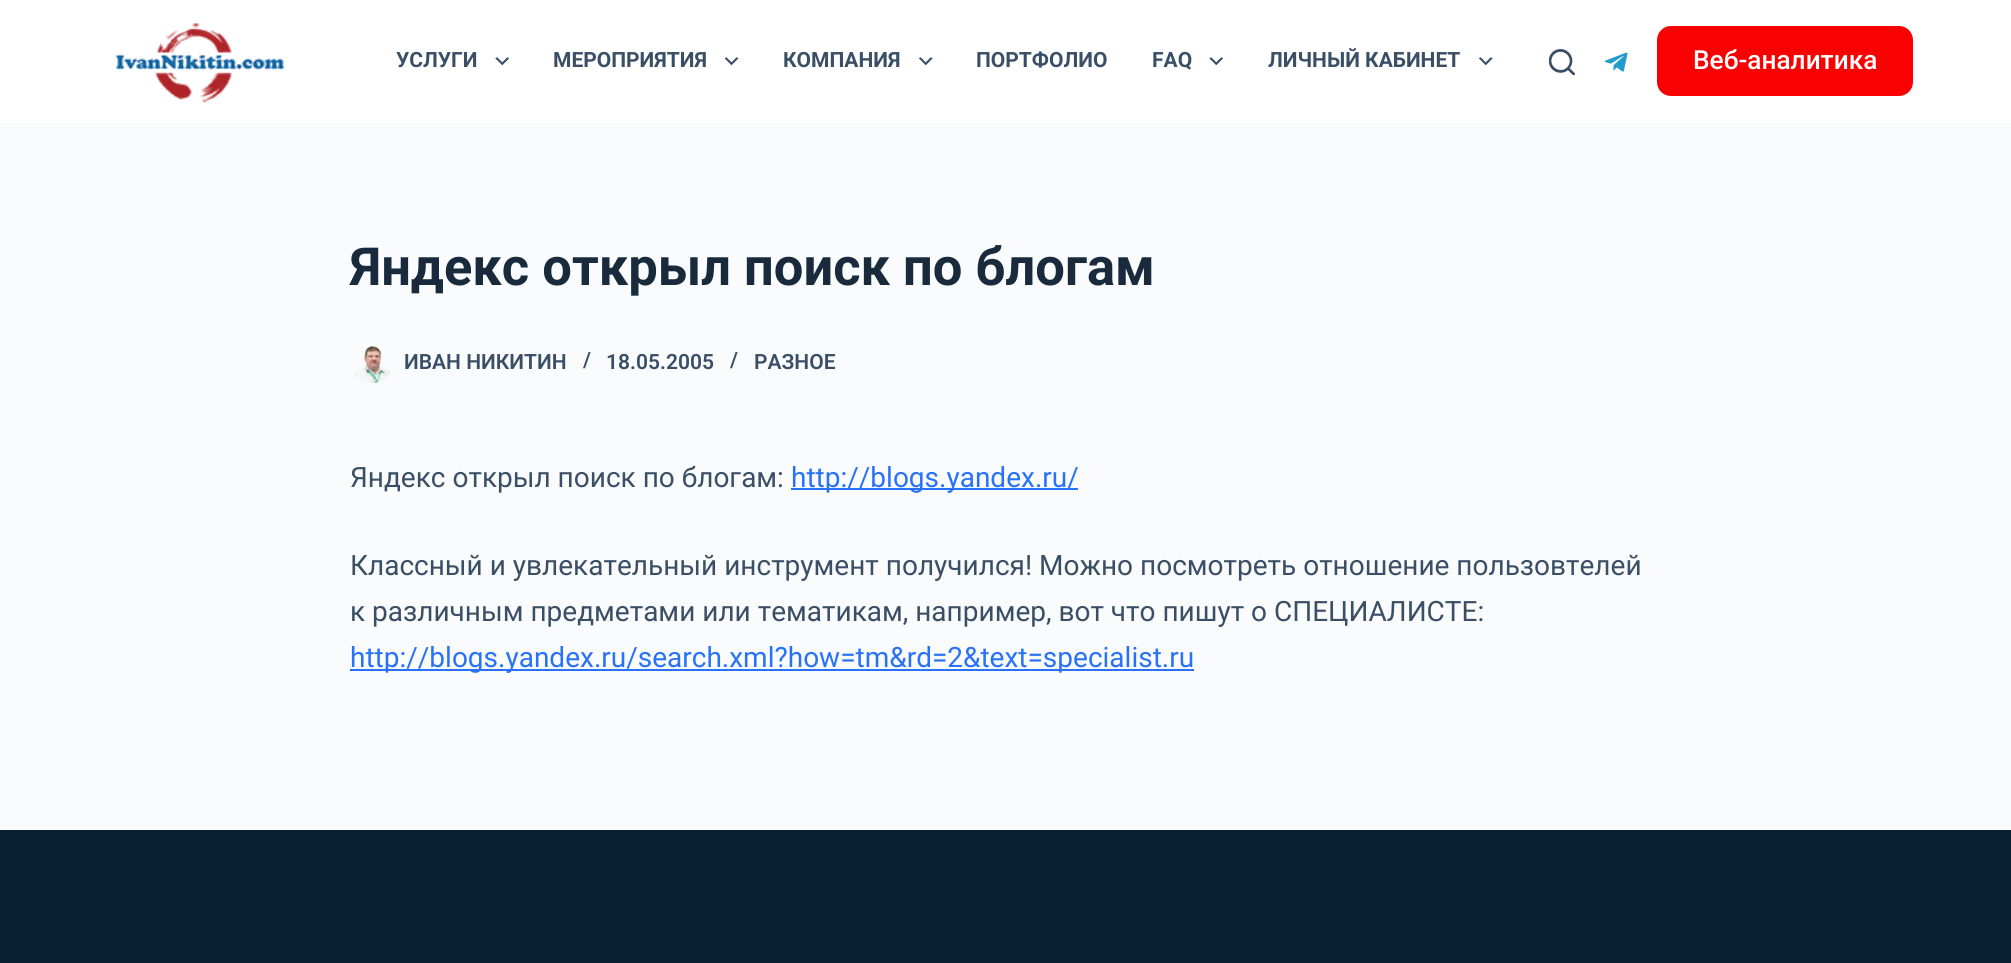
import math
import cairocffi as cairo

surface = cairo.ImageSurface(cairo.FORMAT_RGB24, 2011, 963)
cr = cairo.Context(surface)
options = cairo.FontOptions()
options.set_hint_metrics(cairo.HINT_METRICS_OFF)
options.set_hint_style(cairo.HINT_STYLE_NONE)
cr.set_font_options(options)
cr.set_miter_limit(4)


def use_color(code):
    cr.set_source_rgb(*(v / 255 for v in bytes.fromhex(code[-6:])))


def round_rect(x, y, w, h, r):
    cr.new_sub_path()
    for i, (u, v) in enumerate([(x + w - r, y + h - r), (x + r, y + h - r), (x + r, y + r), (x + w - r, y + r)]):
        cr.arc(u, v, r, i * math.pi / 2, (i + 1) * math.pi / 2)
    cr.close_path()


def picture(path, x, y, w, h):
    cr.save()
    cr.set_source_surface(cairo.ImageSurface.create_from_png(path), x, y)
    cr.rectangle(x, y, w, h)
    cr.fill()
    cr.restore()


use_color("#fafbfc")
cr.paint()
use_color("#ffffff")
cr.rectangle(0, 0, 2011, 123)
cr.fill()
picture("img1.png", 115, 23, 170, 80)
cr.select_font_face("Roboto", cairo.FONT_SLANT_NORMAL, cairo.FONT_WEIGHT_BOLD)
cr.set_font_size(21)
use_color("#3a4f66")
cr.move_to(396, 67)
cr.show_text("УСЛУГИ")
picture("img2.png", 495, 57, 14, 9)
cr.move_to(553, 67)
cr.show_text("МЕРОПРИЯТИЯ")
picture("img3.png", 725, 57, 14, 9)
cr.move_to(783, 67)
cr.show_text("КОМПАНИЯ")
picture("img4.png", 919, 57, 14, 9)
cr.move_to(976, 67)
cr.show_text("ПОРТФОЛИО")
cr.move_to(1152, 67)
cr.show_text("FAQ")
picture("img2.png", 1209, 57, 14, 9)
cr.move_to(1268, 67)
cr.show_text("ЛИЧНЫЙ КАБИНЕТ")
picture("img4.png", 1479, 57, 14, 9)
picture("img5.png", 1549, 49, 26, 26)
picture("img6.png", 1605, 52, 23, 20)
use_color("#f90101")
round_rect(1657, 26, 256, 70, 14)
cr.fill()
cr.select_font_face("Roboto Medium")
cr.set_font_size(26.25)
use_color("#ffffff")
cr.move_to(1693, 69)
cr.show_text("Веб-аналитика")
cr.select_font_face("Roboto", cairo.FONT_SLANT_NORMAL, cairo.FONT_WEIGHT_BOLD)
cr.set_font_size(52.5)
use_color("#192a3d")
cr.move_to(350, 285)
cr.show_text("Яндекс открыл поиск по блогам")
picture("img7.png", 353, 346, 38, 37)
cr.select_font_face("Roboto SemiBold")
cr.set_font_size(21)
use_color("#3a4f66")
cr.move_to(404, 369)
cr.show_text("ИВАН НИКИТИН")
cr.move_to(583, 367)
cr.show_text("/")
cr.move_to(606, 369)
cr.show_text("18.05.2005")
cr.move_to(730, 367)
cr.show_text("/")
cr.move_to(754, 369)
cr.show_text("РАЗНОЕ")
cr.select_font_face("Roboto")
cr.set_font_size(28)
cr.move_to(350, 487)
cr.show_text("Яндекс открыл поиск по блогам:")
use_color("#2872fa")
cr.rectangle(791, 488, 287, 2)
cr.fill()
cr.move_to(791, 487)
cr.show_text("http://blogs.yandex.ru/")
use_color("#3a4f66")
cr.move_to(350, 575)
cr.show_text("Классный и увлекательный инструмент получился! Можно посмотреть отношение пользовтелей")
cr.move_to(350, 621)
cr.show_text("к различным предметами или тематикам, например, вот что пишут о СПЕЦИАЛИСТЕ:")
use_color("#2872fa")
cr.rectangle(350, 669, 844, 2)
cr.fill()
cr.move_to(350, 667)
cr.show_text("http://blogs.yandex.ru/search.xml?how=tm&rd=2&text=specialist.ru")
use_color("#072133")
cr.rectangle(0, 830, 2011, 133)
cr.fill()
surface.write_to_png("result.png")
